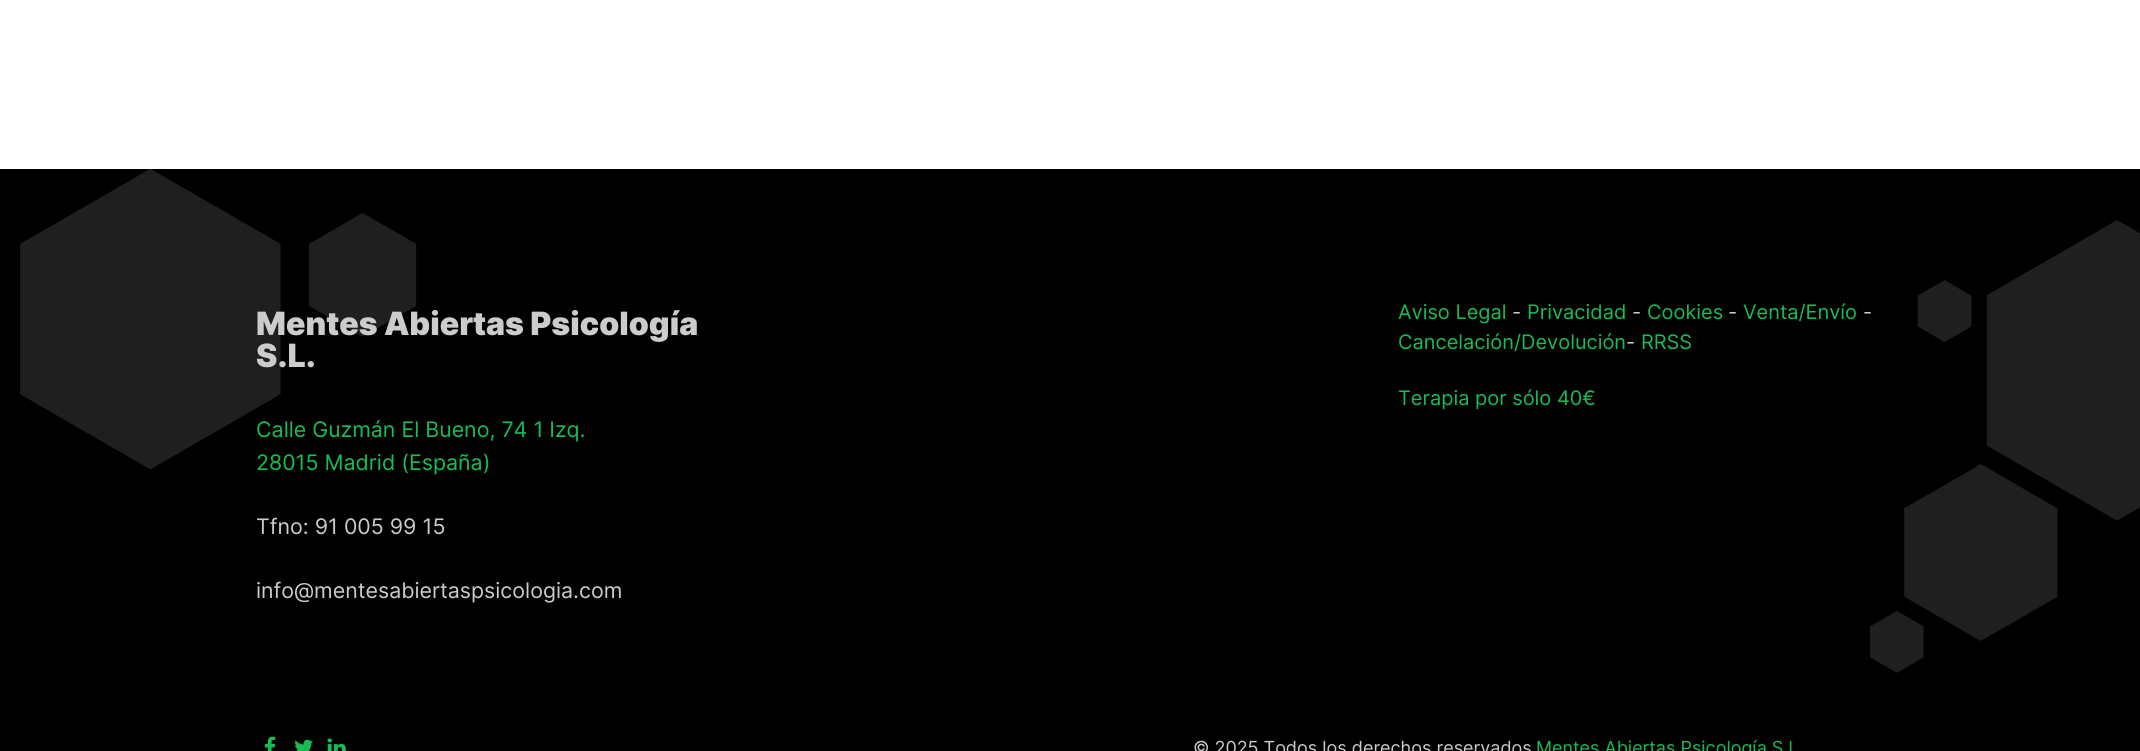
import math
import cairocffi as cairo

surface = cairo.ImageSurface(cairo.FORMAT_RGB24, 2140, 751)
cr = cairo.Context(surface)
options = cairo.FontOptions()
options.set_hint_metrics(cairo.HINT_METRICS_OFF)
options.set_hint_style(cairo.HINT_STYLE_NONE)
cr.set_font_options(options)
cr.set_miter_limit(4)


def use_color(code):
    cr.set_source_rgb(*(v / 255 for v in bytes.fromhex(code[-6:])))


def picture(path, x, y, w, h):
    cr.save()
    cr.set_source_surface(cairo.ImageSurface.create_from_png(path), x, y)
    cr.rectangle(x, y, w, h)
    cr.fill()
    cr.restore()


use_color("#ffffff")
cr.paint()
use_color("#000000")
cr.rectangle(0, 169, 2140, 582)
cr.fill()
picture("img1.png", 20, 169, 2120, 504)
cr.select_font_face("Inter Black")
cr.set_font_size(32.1)
use_color("#cccccc")
cr.move_to(256, 335)
cr.show_text("Mentes Abiertas Psicología")
cr.move_to(256, 367)
cr.show_text("S.L.")
cr.select_font_face("Inter")
cr.set_font_size(21.4)
use_color("#17bd54")
cr.move_to(256, 437)
cr.show_text("Calle Guzmán El Bueno, 74 1 Izq.")
cr.move_to(256, 470)
cr.show_text("28015 Madrid (España)")
use_color("#cccccc")
cr.move_to(256, 534)
cr.show_text("Tfno: 91 005 99 15")
cr.move_to(256, 598)
cr.show_text("info@mentesabiertaspsicologia.com")
cr.set_font_size(20)
use_color("#17bd54")
cr.move_to(1398, 319)
cr.show_text("Aviso Legal")
use_color("#cccccc")
cr.move_to(1512, 319)
cr.show_text("-")
use_color("#17bd54")
cr.move_to(1527, 319)
cr.show_text("Privacidad")
use_color("#cccccc")
cr.move_to(1632, 319)
cr.show_text("-")
use_color("#17bd54")
cr.move_to(1647, 319)
cr.show_text("Cookies")
use_color("#cccccc")
cr.move_to(1728, 319)
cr.show_text("-")
use_color("#17bd54")
cr.move_to(1743, 319)
cr.show_text("Venta/Envío")
use_color("#cccccc")
cr.move_to(1863, 319)
cr.show_text("-")
use_color("#17bd54")
cr.move_to(1398, 349)
cr.show_text("Cancelación/Devolución")
use_color("#cccccc")
cr.move_to(1626, 349)
cr.show_text("-")
use_color("#17bd54")
cr.move_to(1641, 349)
cr.show_text("RRSS")
cr.move_to(1398, 405)
cr.show_text("Terapia por sólo 40€")
picture("img2.png", 264, 736, 12, 15)
picture("img3.png", 295, 739, 18, 12)
picture("img4.png", 327, 738, 19, 13)
cr.set_font_size(18)
use_color("#cccccc")
cr.move_to(1193, 754)
cr.show_text("© 2025 Todos los derechos reservados")
use_color("#17bd54")
cr.move_to(1536, 754)
cr.show_text("Mentes Abiertas Psicología S.L")
surface.write_to_png("result.png")
